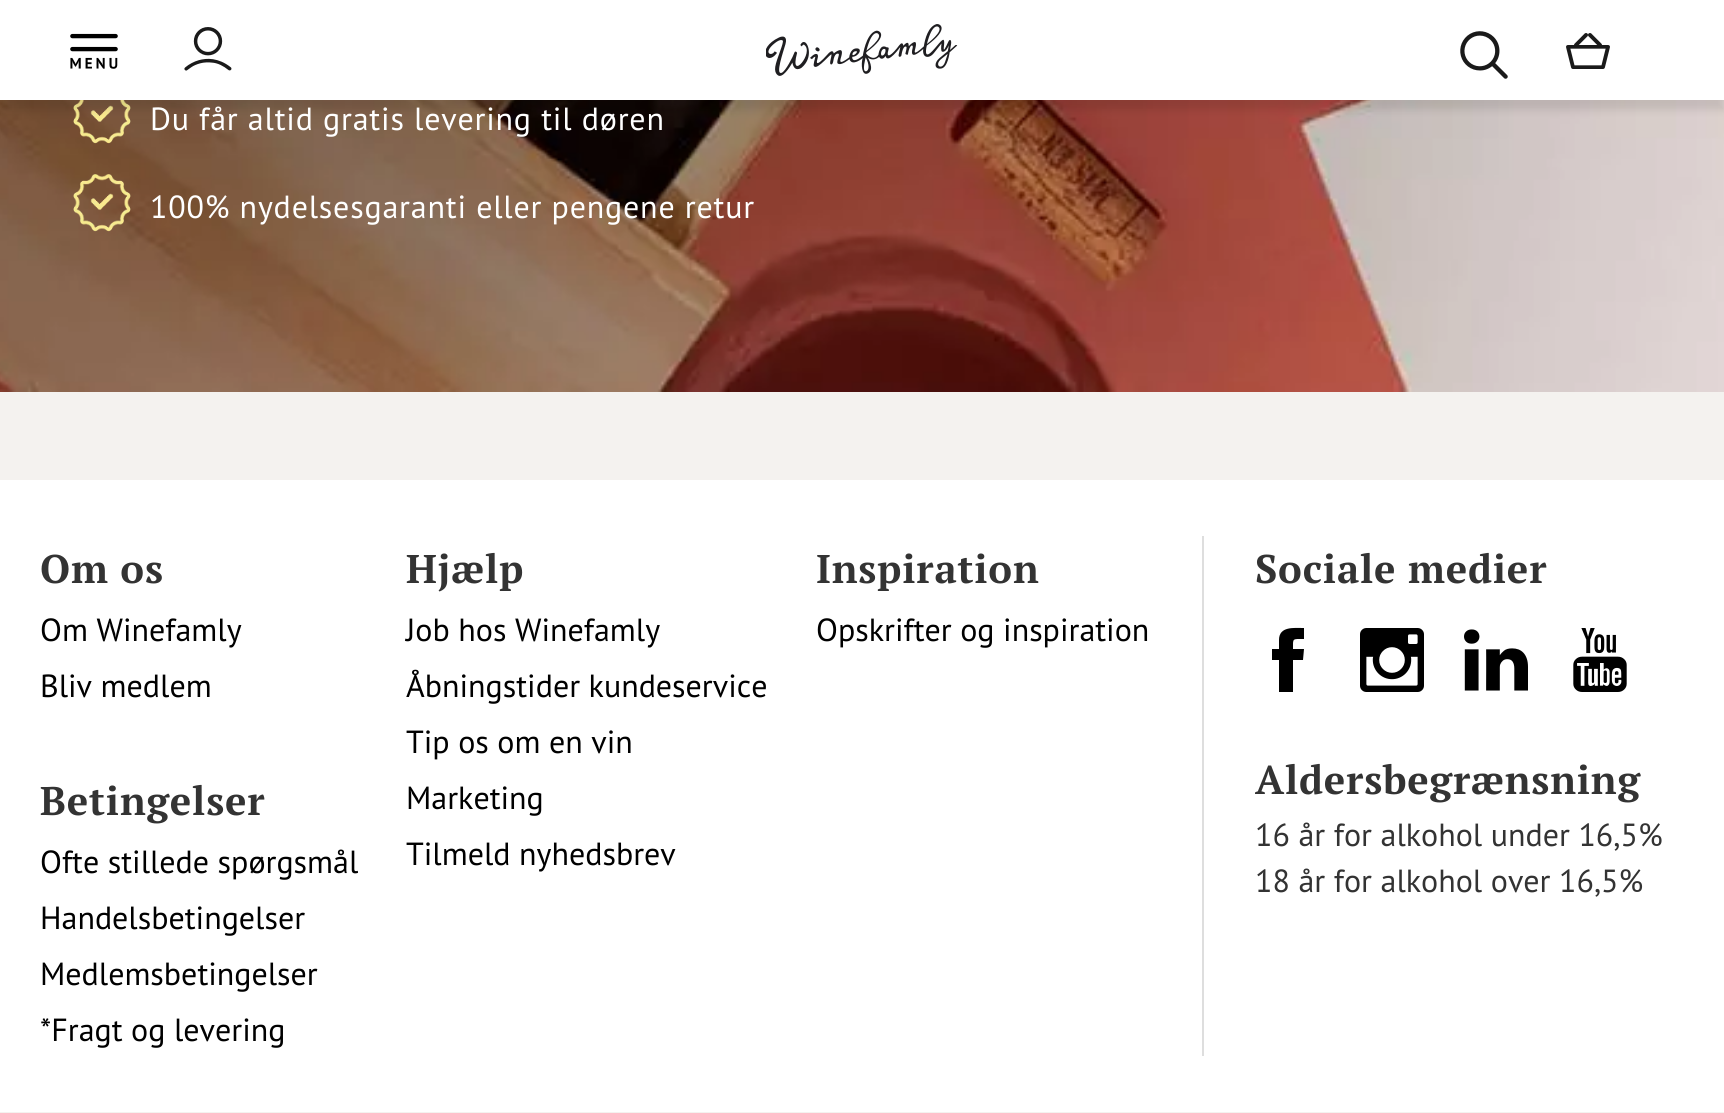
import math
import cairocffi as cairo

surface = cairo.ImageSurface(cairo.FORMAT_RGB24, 1724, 1113)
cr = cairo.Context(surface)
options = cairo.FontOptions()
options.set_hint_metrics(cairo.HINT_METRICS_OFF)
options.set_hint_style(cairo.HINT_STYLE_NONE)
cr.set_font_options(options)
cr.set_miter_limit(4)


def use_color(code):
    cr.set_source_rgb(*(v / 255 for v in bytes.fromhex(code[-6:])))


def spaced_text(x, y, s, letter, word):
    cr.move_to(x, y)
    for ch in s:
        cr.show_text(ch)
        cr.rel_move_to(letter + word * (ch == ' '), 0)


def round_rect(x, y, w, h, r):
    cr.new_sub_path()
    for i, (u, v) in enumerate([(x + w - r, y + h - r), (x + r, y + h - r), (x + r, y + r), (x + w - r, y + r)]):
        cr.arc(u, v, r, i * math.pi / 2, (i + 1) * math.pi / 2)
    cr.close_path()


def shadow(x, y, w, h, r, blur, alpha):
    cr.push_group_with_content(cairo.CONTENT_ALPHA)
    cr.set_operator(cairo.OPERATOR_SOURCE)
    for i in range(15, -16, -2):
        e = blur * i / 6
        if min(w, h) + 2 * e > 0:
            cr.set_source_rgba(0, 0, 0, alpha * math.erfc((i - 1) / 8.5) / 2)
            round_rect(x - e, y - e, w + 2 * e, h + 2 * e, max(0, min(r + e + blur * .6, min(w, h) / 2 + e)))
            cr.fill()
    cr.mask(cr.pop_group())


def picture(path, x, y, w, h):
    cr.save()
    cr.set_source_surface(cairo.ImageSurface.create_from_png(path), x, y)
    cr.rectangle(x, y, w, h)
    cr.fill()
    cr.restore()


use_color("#f4f2ef")
cr.paint()
picture("img6.png", 0, 100, 1724, 292)
picture("img7.png", 73, 100, 58, 44)
use_color("#000000")
shadow(0, 10, 1724, 100, 0, 4, 0.1)
use_color("#ffffff")
cr.rectangle(0, 0, 1724, 100)
cr.fill()
picture("img1.png", 70, 33, 48, 36)
picture("img2.png", 184, 27, 48, 44)
picture("img3.png", 766, 24, 192, 52)
picture("img4.png", 1460, 31, 48, 48)
picture("img5.png", 1566, 33, 44, 36)
cr.select_font_face("PT Sans")
cr.set_font_size(32)
spaced_text(150, 130, "Du får altid gratis levering til døren", 0.8, 0)
picture("img8.png", 73, 174, 58, 58)
spaced_text(150, 218, "100% nydelsesgaranti eller pengene retur", 0.8, 0)
cr.rectangle(0, 480, 1724, 632)
cr.fill()
cr.select_font_face("PT Serif", cairo.FONT_SLANT_NORMAL, cairo.FONT_WEIGHT_BOLD)
cr.set_font_size(40)
use_color("#333333")
spaced_text(40, 583, "Om os", 0.8, 0)
cr.select_font_face("PT Sans")
cr.set_font_size(32)
use_color("#000000")
cr.move_to(40, 641)
cr.show_text("Om Winefamly")
cr.move_to(40, 697)
cr.show_text("Bliv medlem")
cr.select_font_face("PT Serif", cairo.FONT_SLANT_NORMAL, cairo.FONT_WEIGHT_BOLD)
cr.set_font_size(40)
use_color("#333333")
spaced_text(40, 815, "Betingelser", 0.8, 0)
cr.select_font_face("PT Sans")
cr.set_font_size(32)
use_color("#000000")
cr.move_to(40, 873)
cr.show_text("Ofte stillede spørgsmål")
cr.move_to(40, 929)
cr.show_text("Handelsbetingelser")
cr.move_to(40, 985)
cr.show_text("Medlemsbetingelser")
cr.move_to(40, 1041)
cr.show_text("*Fragt og levering")
cr.select_font_face("PT Serif", cairo.FONT_SLANT_NORMAL, cairo.FONT_WEIGHT_BOLD)
cr.set_font_size(40)
use_color("#333333")
spaced_text(406, 583, "Hjælp", 0.8, 0)
cr.select_font_face("PT Sans")
cr.set_font_size(32)
use_color("#000000")
cr.move_to(406, 641)
cr.show_text("Job hos Winefamly")
cr.move_to(406, 697)
cr.show_text("Åbningstider kundeservice")
cr.move_to(406, 753)
cr.show_text("Tip os om en vin")
cr.move_to(406, 809)
cr.show_text("Marketing")
cr.move_to(406, 865)
cr.show_text("Tilmeld nyhedsbrev")
cr.select_font_face("PT Serif", cairo.FONT_SLANT_NORMAL, cairo.FONT_WEIGHT_BOLD)
cr.set_font_size(40)
use_color("#333333")
spaced_text(816, 583, "Inspiration", 0.8, 0)
cr.select_font_face("PT Sans")
cr.set_font_size(32)
use_color("#000000")
cr.move_to(816, 641)
cr.show_text("Opskrifter og inspiration")
use_color("#dedede")
cr.rectangle(1202, 536, 2, 520)
cr.fill()
cr.select_font_face("PT Serif", cairo.FONT_SLANT_NORMAL, cairo.FONT_WEIGHT_BOLD)
cr.set_font_size(40)
use_color("#333333")
spaced_text(1255, 583, "Sociale medier", 0.8, 0)
use_color("#000000")
cr.new_path()
cr.move_to(1279, 640)
cr.line_to(1279, 649)
cr.line_to(1272, 649)
cr.line_to(1272, 660)
cr.line_to(1279, 660)
cr.line_to(1279, 692)
cr.line_to(1293, 692)
cr.line_to(1293, 660)
cr.line_to(1303, 660)
cr.line_to(1304, 649)
cr.line_to(1293, 649)
cr.curve_to(1293, 638, 1292, 639, 1304, 639)
cr.line_to(1304, 628)
cr.curve_to(1294, 628, 1279, 626, 1279, 640)
cr.close_path()
cr.fill()
picture("img9.png", 1360, 628, 64, 64)
picture("img10.png", 1464, 629, 64, 62)
picture("img11.png", 1573, 628, 54, 64)
use_color("#333333")
spaced_text(1255, 794, "Aldersbegrænsning", 0.8, 0)
cr.select_font_face("PT Sans")
cr.set_font_size(32)
cr.move_to(1255, 846)
cr.show_text("16 år for alkohol under 16,5%")
cr.move_to(1255, 892)
cr.show_text("18 år for alkohol over 16,5%")
surface.write_to_png("result.png")
